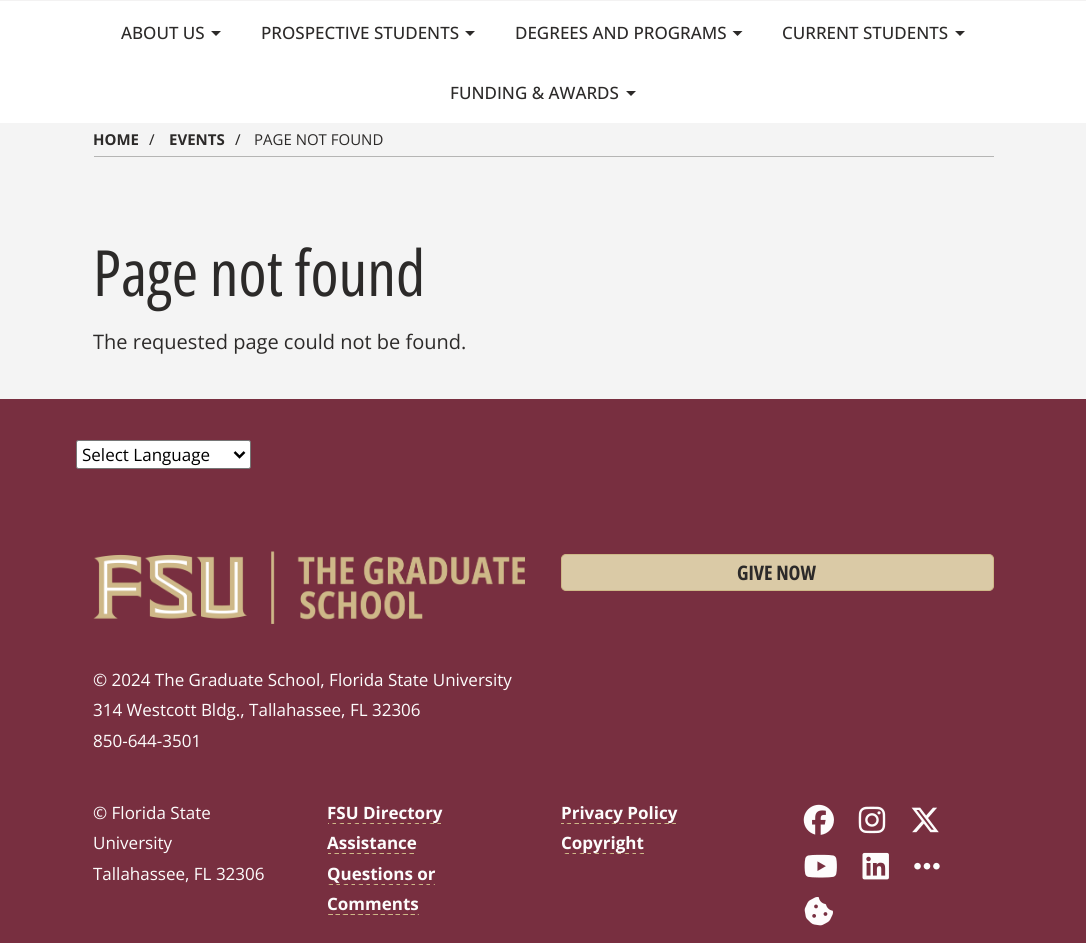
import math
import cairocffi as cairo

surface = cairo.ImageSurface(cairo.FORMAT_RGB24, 1086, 943)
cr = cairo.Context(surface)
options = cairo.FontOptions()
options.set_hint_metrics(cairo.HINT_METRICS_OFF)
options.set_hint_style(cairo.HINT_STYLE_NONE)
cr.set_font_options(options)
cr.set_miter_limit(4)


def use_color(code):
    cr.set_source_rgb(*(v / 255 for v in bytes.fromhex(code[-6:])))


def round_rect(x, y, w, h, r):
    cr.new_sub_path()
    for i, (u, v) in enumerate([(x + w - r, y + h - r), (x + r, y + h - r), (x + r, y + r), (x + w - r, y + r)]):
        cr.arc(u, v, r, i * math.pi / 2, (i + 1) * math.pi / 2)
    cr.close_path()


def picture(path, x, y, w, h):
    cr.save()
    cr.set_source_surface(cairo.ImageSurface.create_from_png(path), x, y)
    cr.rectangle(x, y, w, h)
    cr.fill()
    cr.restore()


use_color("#782f40")
cr.paint()
use_color("#f3f2f2")
cr.rectangle(0, 0, 1086, 1)
cr.fill()
use_color("#ffffff")
cr.rectangle(0, 1, 1086, 122)
cr.fill()
cr.select_font_face("Open Sans Medium")
cr.set_font_size(17)
use_color("#2c2a29")
cr.move_to(121, 39)
cr.show_text("ABOUT US")
cr.new_path()
cr.move_to(211, 31)
cr.line_to(221, 31)
cr.line_to(216, 36)
cr.close_path()
cr.fill()
cr.move_to(261, 39)
cr.show_text("PROSPECTIVE STUDENTS")
cr.new_path()
cr.move_to(465, 31)
cr.line_to(475, 31)
cr.line_to(470, 36)
cr.close_path()
cr.fill()
cr.move_to(515, 39)
cr.show_text("DEGREES AND PROGRAMS")
cr.new_path()
cr.move_to(732.5, 31)
cr.line_to(742.5, 31)
cr.line_to(737.5, 36)
cr.close_path()
cr.fill()
cr.move_to(782, 39)
cr.show_text("CURRENT STUDENTS")
cr.new_path()
cr.move_to(955, 31)
cr.line_to(965, 31)
cr.line_to(960, 36)
cr.close_path()
cr.fill()
cr.move_to(450, 99)
cr.show_text("FUNDING & AWARDS")
cr.new_path()
cr.move_to(626, 91)
cr.line_to(636, 91)
cr.line_to(631, 96)
cr.close_path()
cr.fill()
use_color("#f4f4f4")
cr.rectangle(0, 123, 1086, 276)
cr.fill()
cr.select_font_face("Open Sans", cairo.FONT_SLANT_NORMAL, cairo.FONT_WEIGHT_BOLD)
cr.set_font_size(15)
use_color("#2c2a29")
cr.move_to(93, 145)
cr.show_text("HOME")
cr.select_font_face("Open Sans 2")
cr.move_to(149, 145)
cr.show_text("/")
cr.select_font_face("Open Sans", cairo.FONT_SLANT_NORMAL, cairo.FONT_WEIGHT_BOLD)
cr.move_to(169, 145)
cr.show_text("EVENTS")
cr.select_font_face("Open Sans 2")
cr.move_to(235, 145)
cr.show_text("/")
cr.select_font_face("Open Sans")
cr.move_to(254, 145)
cr.show_text("PAGE NOT FOUND")
use_color("#b5b5b4")
cr.rectangle(94, 156, 900, 1)
cr.fill()
cr.select_font_face("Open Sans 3")
cr.set_font_size(63.75)
use_color("#2c2a29")
cr.move_to(93, 296)
cr.show_text("Page not found")
cr.select_font_face("Open Sans")
cr.set_font_size(20)
cr.move_to(93, 349)
cr.show_text("The requested page could not be found.")
use_color("#ffffff")
round_rect(76.5, 440.5, 174, 28, 2)
cr.fill_preserve()
use_color("#767676")
cr.set_line_width(1)
cr.stroke()
cr.new_path()
cr.move_to(234.5, 452)
cr.line_to(239.5, 457)
cr.line_to(244.5, 452)
use_color("#000000")
cr.set_line_width(2.5)
cr.stroke()
cr.set_font_size(17)
cr.move_to(82, 461)
cr.show_text("Select Language")
use_color("#dacaa6")
round_rect(561.5, 554.5, 432, 36, 4.5)
cr.fill_preserve()
use_color("#ceb888")
cr.set_line_width(1)
cr.stroke()
cr.select_font_face("Open Sans 2", cairo.FONT_SLANT_NORMAL, cairo.FONT_WEIGHT_BOLD)
cr.set_font_size(20)
use_color("#2c2a29")
cr.move_to(737, 580)
cr.show_text("GIVE NOW")
picture("img1.png", 93, 551, 432, 73)
cr.select_font_face("Open Sans")
cr.set_font_size(17)
use_color("#fdfcfc")
cr.move_to(93, 686)
cr.show_text("© 2024 The Graduate School, Florida State University")
cr.move_to(93, 716)
cr.show_text("314 Westcott Bldg., Tallahassee, FL 32306")
cr.move_to(93, 747)
cr.show_text("850-644-3501")
cr.move_to(93, 819)
cr.show_text("© Florida State")
cr.move_to(93, 849)
cr.show_text("University")
cr.move_to(93, 880)
cr.show_text("Tallahassee, FL 32306")
gradient = cairo.LinearGradient(321, 823, 329, 823)
gradient.add_color_stop_rgba(0.4, 0.471, 0.184, 0.251, 1)
gradient.add_color_stop_rgba(0.6, 0.808, 0.722, 0.533, 1)
cr.set_source(gradient)
cr.rectangle(328, 823, 1, 1)
cr.fill()
gradient = cairo.LinearGradient(329, 823, 336, 823)
gradient.add_color_stop_rgba(0.4, 0.471, 0.184, 0.251, 1)
gradient.add_color_stop_rgba(0.6, 0.808, 0.722, 0.533, 1)
cr.set_source(gradient)
cr.rectangle(329, 823, 7, 1)
cr.fill()
gradient = cairo.LinearGradient(336, 823, 344, 823)
gradient.add_color_stop_rgba(0.4, 0.471, 0.184, 0.251, 1)
gradient.add_color_stop_rgba(0.6, 0.808, 0.722, 0.533, 1)
cr.set_source(gradient)
cr.rectangle(336, 823, 8, 1)
cr.fill()
gradient = cairo.LinearGradient(344, 823, 351, 823)
gradient.add_color_stop_rgba(0.4, 0.471, 0.184, 0.251, 1)
gradient.add_color_stop_rgba(0.6, 0.808, 0.722, 0.533, 1)
cr.set_source(gradient)
cr.rectangle(344, 823, 7, 1)
cr.fill()
gradient = cairo.LinearGradient(351, 823, 359, 823)
gradient.add_color_stop_rgba(0.4, 0.471, 0.184, 0.251, 1)
gradient.add_color_stop_rgba(0.6, 0.808, 0.722, 0.533, 1)
cr.set_source(gradient)
cr.rectangle(351, 823, 8, 1)
cr.fill()
gradient = cairo.LinearGradient(359, 823, 366, 823)
gradient.add_color_stop_rgba(0.4, 0.471, 0.184, 0.251, 1)
gradient.add_color_stop_rgba(0.6, 0.808, 0.722, 0.533, 1)
cr.set_source(gradient)
cr.rectangle(359, 823, 7, 1)
cr.fill()
gradient = cairo.LinearGradient(366, 823, 374, 823)
gradient.add_color_stop_rgba(0.4, 0.471, 0.184, 0.251, 1)
gradient.add_color_stop_rgba(0.6, 0.808, 0.722, 0.533, 1)
cr.set_source(gradient)
cr.rectangle(366, 823, 8, 1)
cr.fill()
gradient = cairo.LinearGradient(374, 823, 381, 823)
gradient.add_color_stop_rgba(0.4, 0.471, 0.184, 0.251, 1)
gradient.add_color_stop_rgba(0.6, 0.808, 0.722, 0.533, 1)
cr.set_source(gradient)
cr.rectangle(374, 823, 7, 1)
cr.fill()
gradient = cairo.LinearGradient(381, 823, 389, 823)
gradient.add_color_stop_rgba(0.4, 0.471, 0.184, 0.251, 1)
gradient.add_color_stop_rgba(0.6, 0.808, 0.722, 0.533, 1)
cr.set_source(gradient)
cr.rectangle(381, 823, 8, 1)
cr.fill()
gradient = cairo.LinearGradient(389, 823, 396, 823)
gradient.add_color_stop_rgba(0.4, 0.471, 0.184, 0.251, 1)
gradient.add_color_stop_rgba(0.6, 0.808, 0.722, 0.533, 1)
cr.set_source(gradient)
cr.rectangle(389, 823, 7, 1)
cr.fill()
gradient = cairo.LinearGradient(396, 823, 404, 823)
gradient.add_color_stop_rgba(0.4, 0.471, 0.184, 0.251, 1)
gradient.add_color_stop_rgba(0.6, 0.808, 0.722, 0.533, 1)
cr.set_source(gradient)
cr.rectangle(396, 823, 8, 1)
cr.fill()
gradient = cairo.LinearGradient(404, 823, 411, 823)
gradient.add_color_stop_rgba(0.4, 0.471, 0.184, 0.251, 1)
gradient.add_color_stop_rgba(0.6, 0.808, 0.722, 0.533, 1)
cr.set_source(gradient)
cr.rectangle(404, 823, 7, 1)
cr.fill()
gradient = cairo.LinearGradient(411, 823, 419, 823)
gradient.add_color_stop_rgba(0.4, 0.471, 0.184, 0.251, 1)
gradient.add_color_stop_rgba(0.6, 0.808, 0.722, 0.533, 1)
cr.set_source(gradient)
cr.rectangle(411, 823, 8, 1)
cr.fill()
gradient = cairo.LinearGradient(419, 823, 426, 823)
gradient.add_color_stop_rgba(0.4, 0.471, 0.184, 0.251, 1)
gradient.add_color_stop_rgba(0.6, 0.808, 0.722, 0.533, 1)
cr.set_source(gradient)
cr.rectangle(419, 823, 7, 1)
cr.fill()
gradient = cairo.LinearGradient(426, 823, 434, 823)
gradient.add_color_stop_rgba(0.4, 0.471, 0.184, 0.251, 1)
gradient.add_color_stop_rgba(0.6, 0.808, 0.722, 0.533, 1)
cr.set_source(gradient)
cr.rectangle(426, 823, 8, 1)
cr.fill()
gradient = cairo.LinearGradient(434, 823, 441, 823)
gradient.add_color_stop_rgba(0.4, 0.471, 0.184, 0.251, 1)
gradient.add_color_stop_rgba(0.6, 0.808, 0.722, 0.533, 1)
cr.set_source(gradient)
cr.rectangle(434, 823, 7, 1)
cr.fill()
cr.select_font_face("Open Sans", cairo.FONT_SLANT_NORMAL, cairo.FONT_WEIGHT_BOLD)
use_color("#fdfcfc")
cr.move_to(327, 819)
cr.show_text("FSU Directory")
cr.move_to(327, 849)
cr.show_text("Assistance")
gradient = cairo.LinearGradient(323, 853, 331, 853)
gradient.add_color_stop_rgba(0.4, 0.471, 0.184, 0.251, 1)
gradient.add_color_stop_rgba(0.6, 0.808, 0.722, 0.533, 1)
cr.set_source(gradient)
cr.rectangle(328, 853, 3, 1)
cr.fill()
gradient = cairo.LinearGradient(331, 853, 338, 853)
gradient.add_color_stop_rgba(0.4, 0.471, 0.184, 0.251, 1)
gradient.add_color_stop_rgba(0.6, 0.808, 0.722, 0.533, 1)
cr.set_source(gradient)
cr.rectangle(331, 853, 8, 1)
cr.fill()
gradient = cairo.LinearGradient(338, 853, 346, 853)
gradient.add_color_stop_rgba(0.4, 0.471, 0.184, 0.251, 1)
gradient.add_color_stop_rgba(0.6, 0.808, 0.722, 0.533, 1)
cr.set_source(gradient)
cr.rectangle(339, 853, 7, 1)
cr.fill()
gradient = cairo.LinearGradient(346, 853, 353, 853)
gradient.add_color_stop_rgba(0.4, 0.471, 0.184, 0.251, 1)
gradient.add_color_stop_rgba(0.6, 0.808, 0.722, 0.533, 1)
cr.set_source(gradient)
cr.rectangle(346, 853, 8, 1)
cr.fill()
gradient = cairo.LinearGradient(353, 853, 361, 853)
gradient.add_color_stop_rgba(0.4, 0.471, 0.184, 0.251, 1)
gradient.add_color_stop_rgba(0.6, 0.808, 0.722, 0.533, 1)
cr.set_source(gradient)
cr.rectangle(354, 853, 7, 1)
cr.fill()
gradient = cairo.LinearGradient(361, 853, 368, 853)
gradient.add_color_stop_rgba(0.4, 0.471, 0.184, 0.251, 1)
gradient.add_color_stop_rgba(0.6, 0.808, 0.722, 0.533, 1)
cr.set_source(gradient)
cr.rectangle(361, 853, 8, 1)
cr.fill()
gradient = cairo.LinearGradient(368, 853, 376, 853)
gradient.add_color_stop_rgba(0.4, 0.471, 0.184, 0.251, 1)
gradient.add_color_stop_rgba(0.6, 0.808, 0.722, 0.533, 1)
cr.set_source(gradient)
cr.rectangle(369, 853, 7, 1)
cr.fill()
gradient = cairo.LinearGradient(376, 853, 383, 853)
gradient.add_color_stop_rgba(0.4, 0.471, 0.184, 0.251, 1)
gradient.add_color_stop_rgba(0.6, 0.808, 0.722, 0.533, 1)
cr.set_source(gradient)
cr.rectangle(376, 853, 8, 1)
cr.fill()
gradient = cairo.LinearGradient(383, 853, 391, 853)
gradient.add_color_stop_rgba(0.4, 0.471, 0.184, 0.251, 1)
gradient.add_color_stop_rgba(0.6, 0.808, 0.722, 0.533, 1)
cr.set_source(gradient)
cr.rectangle(384, 853, 7, 1)
cr.fill()
gradient = cairo.LinearGradient(391, 853, 398, 853)
gradient.add_color_stop_rgba(0.4, 0.471, 0.184, 0.251, 1)
gradient.add_color_stop_rgba(0.6, 0.808, 0.722, 0.533, 1)
cr.set_source(gradient)
cr.rectangle(391, 853, 8, 1)
cr.fill()
gradient = cairo.LinearGradient(398, 853, 406, 853)
gradient.add_color_stop_rgba(0.4, 0.471, 0.184, 0.251, 1)
gradient.add_color_stop_rgba(0.6, 0.808, 0.722, 0.533, 1)
cr.set_source(gradient)
cr.rectangle(399, 853, 7, 1)
cr.fill()
gradient = cairo.LinearGradient(406, 853, 413, 853)
gradient.add_color_stop_rgba(0.4, 0.471, 0.184, 0.251, 1)
gradient.add_color_stop_rgba(0.6, 0.808, 0.722, 0.533, 1)
cr.set_source(gradient)
cr.rectangle(406, 853, 8, 1)
cr.fill()
use_color("#fdfcfc")
cr.move_to(327, 880)
cr.show_text("Questions or")
gradient = cairo.LinearGradient(325, 884, 333, 884)
gradient.add_color_stop_rgba(0.4, 0.471, 0.184, 0.251, 1)
gradient.add_color_stop_rgba(0.6, 0.808, 0.722, 0.533, 1)
cr.set_source(gradient)
cr.rectangle(328, 884, 5, 1)
cr.fill()
gradient = cairo.LinearGradient(333, 884, 340, 884)
gradient.add_color_stop_rgba(0.4, 0.471, 0.184, 0.251, 1)
gradient.add_color_stop_rgba(0.6, 0.808, 0.722, 0.533, 1)
cr.set_source(gradient)
cr.rectangle(333, 884, 7, 1)
cr.fill()
gradient = cairo.LinearGradient(340, 884, 348, 884)
gradient.add_color_stop_rgba(0.4, 0.471, 0.184, 0.251, 1)
gradient.add_color_stop_rgba(0.6, 0.808, 0.722, 0.533, 1)
cr.set_source(gradient)
cr.rectangle(340, 884, 8, 1)
cr.fill()
gradient = cairo.LinearGradient(348, 884, 355, 884)
gradient.add_color_stop_rgba(0.4, 0.471, 0.184, 0.251, 1)
gradient.add_color_stop_rgba(0.6, 0.808, 0.722, 0.533, 1)
cr.set_source(gradient)
cr.rectangle(348, 884, 7, 1)
cr.fill()
gradient = cairo.LinearGradient(355, 884, 363, 884)
gradient.add_color_stop_rgba(0.4, 0.471, 0.184, 0.251, 1)
gradient.add_color_stop_rgba(0.6, 0.808, 0.722, 0.533, 1)
cr.set_source(gradient)
cr.rectangle(355, 884, 8, 1)
cr.fill()
gradient = cairo.LinearGradient(363, 884, 370, 884)
gradient.add_color_stop_rgba(0.4, 0.471, 0.184, 0.251, 1)
gradient.add_color_stop_rgba(0.6, 0.808, 0.722, 0.533, 1)
cr.set_source(gradient)
cr.rectangle(363, 884, 7, 1)
cr.fill()
gradient = cairo.LinearGradient(370, 884, 378, 884)
gradient.add_color_stop_rgba(0.4, 0.471, 0.184, 0.251, 1)
gradient.add_color_stop_rgba(0.6, 0.808, 0.722, 0.533, 1)
cr.set_source(gradient)
cr.rectangle(370, 884, 8, 1)
cr.fill()
gradient = cairo.LinearGradient(378, 884, 385, 884)
gradient.add_color_stop_rgba(0.4, 0.471, 0.184, 0.251, 1)
gradient.add_color_stop_rgba(0.6, 0.808, 0.722, 0.533, 1)
cr.set_source(gradient)
cr.rectangle(378, 884, 7, 1)
cr.fill()
gradient = cairo.LinearGradient(385, 884, 393, 884)
gradient.add_color_stop_rgba(0.4, 0.471, 0.184, 0.251, 1)
gradient.add_color_stop_rgba(0.6, 0.808, 0.722, 0.533, 1)
cr.set_source(gradient)
cr.rectangle(385, 884, 8, 1)
cr.fill()
gradient = cairo.LinearGradient(393, 884, 400, 884)
gradient.add_color_stop_rgba(0.4, 0.471, 0.184, 0.251, 1)
gradient.add_color_stop_rgba(0.6, 0.808, 0.722, 0.533, 1)
cr.set_source(gradient)
cr.rectangle(393, 884, 7, 1)
cr.fill()
gradient = cairo.LinearGradient(400, 884, 408, 884)
gradient.add_color_stop_rgba(0.4, 0.471, 0.184, 0.251, 1)
gradient.add_color_stop_rgba(0.6, 0.808, 0.722, 0.533, 1)
cr.set_source(gradient)
cr.rectangle(400, 884, 8, 1)
cr.fill()
gradient = cairo.LinearGradient(408, 884, 415, 884)
gradient.add_color_stop_rgba(0.4, 0.471, 0.184, 0.251, 1)
gradient.add_color_stop_rgba(0.6, 0.808, 0.722, 0.533, 1)
cr.set_source(gradient)
cr.rectangle(408, 884, 7, 1)
cr.fill()
gradient = cairo.LinearGradient(415, 884, 423, 884)
gradient.add_color_stop_rgba(0.4, 0.471, 0.184, 0.251, 1)
gradient.add_color_stop_rgba(0.6, 0.808, 0.722, 0.533, 1)
cr.set_source(gradient)
cr.rectangle(415, 884, 8, 1)
cr.fill()
gradient = cairo.LinearGradient(423, 884, 430, 884)
gradient.add_color_stop_rgba(0.4, 0.471, 0.184, 0.251, 1)
gradient.add_color_stop_rgba(0.6, 0.808, 0.722, 0.533, 1)
cr.set_source(gradient)
cr.rectangle(423, 884, 7, 1)
cr.fill()
gradient = cairo.LinearGradient(430, 884, 438, 884)
gradient.add_color_stop_rgba(0.4, 0.471, 0.184, 0.251, 1)
gradient.add_color_stop_rgba(0.6, 0.808, 0.722, 0.533, 1)
cr.set_source(gradient)
cr.rectangle(430, 884, 5, 1)
cr.fill()
use_color("#fdfcfc")
cr.move_to(327, 910)
cr.show_text("Comments")
gradient = cairo.LinearGradient(324, 914, 332, 914)
gradient.add_color_stop_rgba(0.4, 0.471, 0.184, 0.251, 1)
gradient.add_color_stop_rgba(0.6, 0.808, 0.722, 0.533, 1)
cr.set_source(gradient)
cr.rectangle(328, 914, 5, 1)
cr.fill()
gradient = cairo.LinearGradient(332, 914, 339, 914)
gradient.add_color_stop_rgba(0.4, 0.471, 0.184, 0.251, 1)
gradient.add_color_stop_rgba(0.6, 0.808, 0.722, 0.533, 1)
cr.set_source(gradient)
cr.rectangle(333, 914, 7, 1)
cr.fill()
gradient = cairo.LinearGradient(339, 914, 347, 914)
gradient.add_color_stop_rgba(0.4, 0.471, 0.184, 0.251, 1)
gradient.add_color_stop_rgba(0.6, 0.808, 0.722, 0.533, 1)
cr.set_source(gradient)
cr.rectangle(340, 914, 8, 1)
cr.fill()
gradient = cairo.LinearGradient(347, 914, 354, 914)
gradient.add_color_stop_rgba(0.4, 0.471, 0.184, 0.251, 1)
gradient.add_color_stop_rgba(0.6, 0.808, 0.722, 0.533, 1)
cr.set_source(gradient)
cr.rectangle(348, 914, 7, 1)
cr.fill()
gradient = cairo.LinearGradient(354, 914, 362, 914)
gradient.add_color_stop_rgba(0.4, 0.471, 0.184, 0.251, 1)
gradient.add_color_stop_rgba(0.6, 0.808, 0.722, 0.533, 1)
cr.set_source(gradient)
cr.rectangle(355, 914, 8, 1)
cr.fill()
gradient = cairo.LinearGradient(362, 914, 369, 914)
gradient.add_color_stop_rgba(0.4, 0.471, 0.184, 0.251, 1)
gradient.add_color_stop_rgba(0.6, 0.808, 0.722, 0.533, 1)
cr.set_source(gradient)
cr.rectangle(363, 914, 7, 1)
cr.fill()
gradient = cairo.LinearGradient(369, 914, 377, 914)
gradient.add_color_stop_rgba(0.4, 0.471, 0.184, 0.251, 1)
gradient.add_color_stop_rgba(0.6, 0.808, 0.722, 0.533, 1)
cr.set_source(gradient)
cr.rectangle(370, 914, 8, 1)
cr.fill()
gradient = cairo.LinearGradient(377, 914, 384, 914)
gradient.add_color_stop_rgba(0.4, 0.471, 0.184, 0.251, 1)
gradient.add_color_stop_rgba(0.6, 0.808, 0.722, 0.533, 1)
cr.set_source(gradient)
cr.rectangle(378, 914, 7, 1)
cr.fill()
gradient = cairo.LinearGradient(384, 914, 392, 914)
gradient.add_color_stop_rgba(0.4, 0.471, 0.184, 0.251, 1)
gradient.add_color_stop_rgba(0.6, 0.808, 0.722, 0.533, 1)
cr.set_source(gradient)
cr.rectangle(385, 914, 8, 1)
cr.fill()
gradient = cairo.LinearGradient(392, 914, 399, 914)
gradient.add_color_stop_rgba(0.4, 0.471, 0.184, 0.251, 1)
gradient.add_color_stop_rgba(0.6, 0.808, 0.722, 0.533, 1)
cr.set_source(gradient)
cr.rectangle(393, 914, 7, 1)
cr.fill()
gradient = cairo.LinearGradient(399, 914, 407, 914)
gradient.add_color_stop_rgba(0.4, 0.471, 0.184, 0.251, 1)
gradient.add_color_stop_rgba(0.6, 0.808, 0.722, 0.533, 1)
cr.set_source(gradient)
cr.rectangle(400, 914, 8, 1)
cr.fill()
gradient = cairo.LinearGradient(407, 914, 414, 914)
gradient.add_color_stop_rgba(0.4, 0.471, 0.184, 0.251, 1)
gradient.add_color_stop_rgba(0.6, 0.808, 0.722, 0.533, 1)
cr.set_source(gradient)
cr.rectangle(408, 914, 7, 1)
cr.fill()
gradient = cairo.LinearGradient(414, 914, 422, 914)
gradient.add_color_stop_rgba(0.4, 0.471, 0.184, 0.251, 1)
gradient.add_color_stop_rgba(0.6, 0.808, 0.722, 0.533, 1)
cr.set_source(gradient)
cr.rectangle(415, 914, 4, 1)
cr.fill()
gradient = cairo.LinearGradient(556, 823, 563, 823)
gradient.add_color_stop_rgba(0.4, 0.471, 0.184, 0.251, 1)
gradient.add_color_stop_rgba(0.6, 0.808, 0.722, 0.533, 1)
cr.set_source(gradient)
cr.rectangle(561, 823, 3, 1)
cr.fill()
gradient = cairo.LinearGradient(563, 823, 571, 823)
gradient.add_color_stop_rgba(0.4, 0.471, 0.184, 0.251, 1)
gradient.add_color_stop_rgba(0.6, 0.808, 0.722, 0.533, 1)
cr.set_source(gradient)
cr.rectangle(564, 823, 7, 1)
cr.fill()
gradient = cairo.LinearGradient(571, 823, 578, 823)
gradient.add_color_stop_rgba(0.4, 0.471, 0.184, 0.251, 1)
gradient.add_color_stop_rgba(0.6, 0.808, 0.722, 0.533, 1)
cr.set_source(gradient)
cr.rectangle(571, 823, 8, 1)
cr.fill()
gradient = cairo.LinearGradient(578, 823, 586, 823)
gradient.add_color_stop_rgba(0.4, 0.471, 0.184, 0.251, 1)
gradient.add_color_stop_rgba(0.6, 0.808, 0.722, 0.533, 1)
cr.set_source(gradient)
cr.rectangle(579, 823, 7, 1)
cr.fill()
gradient = cairo.LinearGradient(586, 823, 593, 823)
gradient.add_color_stop_rgba(0.4, 0.471, 0.184, 0.251, 1)
gradient.add_color_stop_rgba(0.6, 0.808, 0.722, 0.533, 1)
cr.set_source(gradient)
cr.rectangle(586, 823, 8, 1)
cr.fill()
gradient = cairo.LinearGradient(593, 823, 601, 823)
gradient.add_color_stop_rgba(0.4, 0.471, 0.184, 0.251, 1)
gradient.add_color_stop_rgba(0.6, 0.808, 0.722, 0.533, 1)
cr.set_source(gradient)
cr.rectangle(594, 823, 7, 1)
cr.fill()
gradient = cairo.LinearGradient(601, 823, 608, 823)
gradient.add_color_stop_rgba(0.4, 0.471, 0.184, 0.251, 1)
gradient.add_color_stop_rgba(0.6, 0.808, 0.722, 0.533, 1)
cr.set_source(gradient)
cr.rectangle(601, 823, 8, 1)
cr.fill()
gradient = cairo.LinearGradient(608, 823, 616, 823)
gradient.add_color_stop_rgba(0.4, 0.471, 0.184, 0.251, 1)
gradient.add_color_stop_rgba(0.6, 0.808, 0.722, 0.533, 1)
cr.set_source(gradient)
cr.rectangle(609, 823, 7, 1)
cr.fill()
gradient = cairo.LinearGradient(616, 823, 623, 823)
gradient.add_color_stop_rgba(0.4, 0.471, 0.184, 0.251, 1)
gradient.add_color_stop_rgba(0.6, 0.808, 0.722, 0.533, 1)
cr.set_source(gradient)
cr.rectangle(616, 823, 8, 1)
cr.fill()
gradient = cairo.LinearGradient(623, 823, 631, 823)
gradient.add_color_stop_rgba(0.4, 0.471, 0.184, 0.251, 1)
gradient.add_color_stop_rgba(0.6, 0.808, 0.722, 0.533, 1)
cr.set_source(gradient)
cr.rectangle(624, 823, 7, 1)
cr.fill()
gradient = cairo.LinearGradient(631, 823, 638, 823)
gradient.add_color_stop_rgba(0.4, 0.471, 0.184, 0.251, 1)
gradient.add_color_stop_rgba(0.6, 0.808, 0.722, 0.533, 1)
cr.set_source(gradient)
cr.rectangle(631, 823, 8, 1)
cr.fill()
gradient = cairo.LinearGradient(638, 823, 646, 823)
gradient.add_color_stop_rgba(0.4, 0.471, 0.184, 0.251, 1)
gradient.add_color_stop_rgba(0.6, 0.808, 0.722, 0.533, 1)
cr.set_source(gradient)
cr.rectangle(639, 823, 7, 1)
cr.fill()
gradient = cairo.LinearGradient(646, 823, 653, 823)
gradient.add_color_stop_rgba(0.4, 0.471, 0.184, 0.251, 1)
gradient.add_color_stop_rgba(0.6, 0.808, 0.722, 0.533, 1)
cr.set_source(gradient)
cr.rectangle(646, 823, 8, 1)
cr.fill()
gradient = cairo.LinearGradient(653, 823, 661, 823)
gradient.add_color_stop_rgba(0.4, 0.471, 0.184, 0.251, 1)
gradient.add_color_stop_rgba(0.6, 0.808, 0.722, 0.533, 1)
cr.set_source(gradient)
cr.rectangle(654, 823, 7, 1)
cr.fill()
gradient = cairo.LinearGradient(661, 823, 668, 823)
gradient.add_color_stop_rgba(0.4, 0.471, 0.184, 0.251, 1)
gradient.add_color_stop_rgba(0.6, 0.808, 0.722, 0.533, 1)
cr.set_source(gradient)
cr.rectangle(661, 823, 8, 1)
cr.fill()
gradient = cairo.LinearGradient(668, 823, 676, 823)
gradient.add_color_stop_rgba(0.4, 0.471, 0.184, 0.251, 1)
gradient.add_color_stop_rgba(0.6, 0.808, 0.722, 0.533, 1)
cr.set_source(gradient)
cr.rectangle(669, 823, 7, 1)
cr.fill()
use_color("#fdfcfc")
cr.move_to(561, 819)
cr.show_text("Privacy Policy")
gradient = cairo.LinearGradient(561, 853, 569, 853)
gradient.add_color_stop_rgba(0.4, 0.471, 0.184, 0.251, 1)
gradient.add_color_stop_rgba(0.6, 0.808, 0.722, 0.533, 1)
cr.set_source(gradient)
cr.rectangle(561, 853, 8, 1)
cr.fill()
gradient = cairo.LinearGradient(569, 853, 576, 853)
gradient.add_color_stop_rgba(0.4, 0.471, 0.184, 0.251, 1)
gradient.add_color_stop_rgba(0.6, 0.808, 0.722, 0.533, 1)
cr.set_source(gradient)
cr.rectangle(569, 853, 7, 1)
cr.fill()
gradient = cairo.LinearGradient(576, 853, 584, 853)
gradient.add_color_stop_rgba(0.4, 0.471, 0.184, 0.251, 1)
gradient.add_color_stop_rgba(0.6, 0.808, 0.722, 0.533, 1)
cr.set_source(gradient)
cr.rectangle(576, 853, 8, 1)
cr.fill()
gradient = cairo.LinearGradient(584, 853, 591, 853)
gradient.add_color_stop_rgba(0.4, 0.471, 0.184, 0.251, 1)
gradient.add_color_stop_rgba(0.6, 0.808, 0.722, 0.533, 1)
cr.set_source(gradient)
cr.rectangle(584, 853, 7, 1)
cr.fill()
gradient = cairo.LinearGradient(591, 853, 599, 853)
gradient.add_color_stop_rgba(0.4, 0.471, 0.184, 0.251, 1)
gradient.add_color_stop_rgba(0.6, 0.808, 0.722, 0.533, 1)
cr.set_source(gradient)
cr.rectangle(591, 853, 8, 1)
cr.fill()
gradient = cairo.LinearGradient(599, 853, 606, 853)
gradient.add_color_stop_rgba(0.4, 0.471, 0.184, 0.251, 1)
gradient.add_color_stop_rgba(0.6, 0.808, 0.722, 0.533, 1)
cr.set_source(gradient)
cr.rectangle(599, 853, 7, 1)
cr.fill()
gradient = cairo.LinearGradient(606, 853, 614, 853)
gradient.add_color_stop_rgba(0.4, 0.471, 0.184, 0.251, 1)
gradient.add_color_stop_rgba(0.6, 0.808, 0.722, 0.533, 1)
cr.set_source(gradient)
cr.rectangle(606, 853, 8, 1)
cr.fill()
gradient = cairo.LinearGradient(614, 853, 621, 853)
gradient.add_color_stop_rgba(0.4, 0.471, 0.184, 0.251, 1)
gradient.add_color_stop_rgba(0.6, 0.808, 0.722, 0.533, 1)
cr.set_source(gradient)
cr.rectangle(614, 853, 7, 1)
cr.fill()
gradient = cairo.LinearGradient(621, 853, 629, 853)
gradient.add_color_stop_rgba(0.4, 0.471, 0.184, 0.251, 1)
gradient.add_color_stop_rgba(0.6, 0.808, 0.722, 0.533, 1)
cr.set_source(gradient)
cr.rectangle(621, 853, 8, 1)
cr.fill()
gradient = cairo.LinearGradient(629, 853, 636, 853)
gradient.add_color_stop_rgba(0.4, 0.471, 0.184, 0.251, 1)
gradient.add_color_stop_rgba(0.6, 0.808, 0.722, 0.533, 1)
cr.set_source(gradient)
cr.rectangle(629, 853, 7, 1)
cr.fill()
gradient = cairo.LinearGradient(636, 853, 644, 853)
gradient.add_color_stop_rgba(0.4, 0.471, 0.184, 0.251, 1)
gradient.add_color_stop_rgba(0.6, 0.808, 0.722, 0.533, 1)
cr.set_source(gradient)
cr.rectangle(636, 853, 8, 1)
cr.fill()
use_color("#fdfcfc")
cr.move_to(561, 849)
cr.show_text("Copyright")
picture("img2.png", 803, 804, 31, 31)
picture("img3.png", 858, 806, 28, 28)
picture("img4.png", 911, 807, 28, 26)
picture("img5.png", 804, 854, 33, 24)
picture("img6.png", 862, 852, 27, 28)
picture("img7.png", 914, 862, 26, 8)
picture("img8.png", 804, 897, 29, 29)
surface.write_to_png("result.png")
